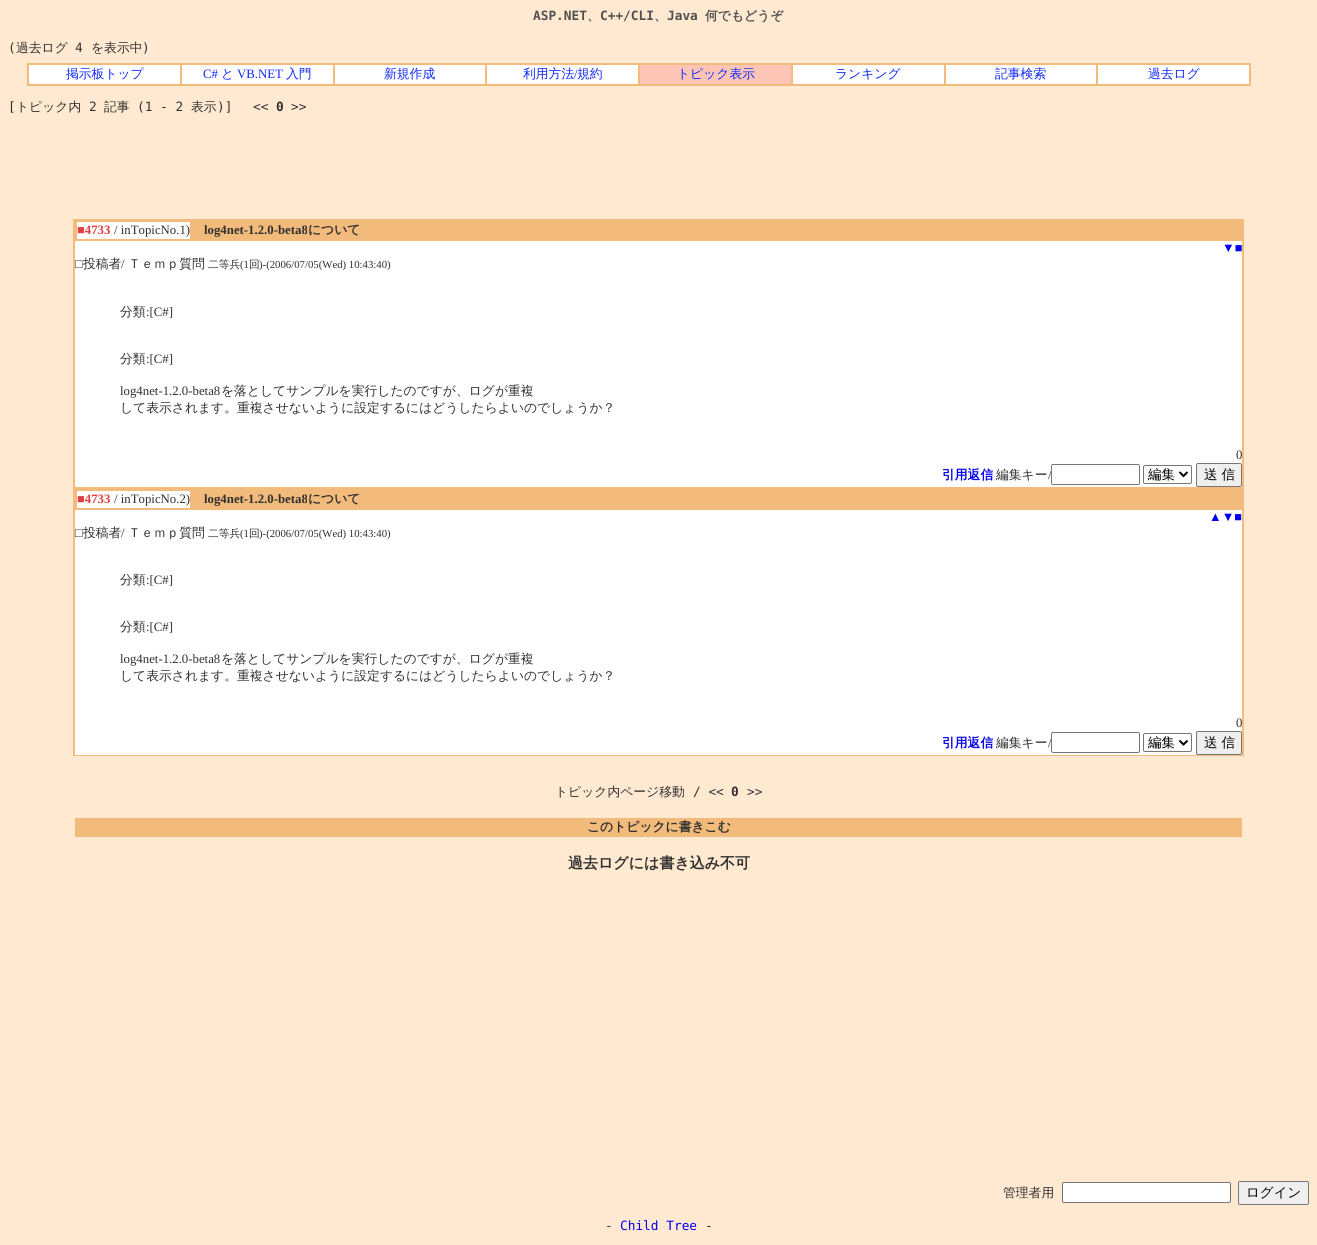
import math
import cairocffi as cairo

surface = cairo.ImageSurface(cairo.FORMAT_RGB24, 1317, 1245)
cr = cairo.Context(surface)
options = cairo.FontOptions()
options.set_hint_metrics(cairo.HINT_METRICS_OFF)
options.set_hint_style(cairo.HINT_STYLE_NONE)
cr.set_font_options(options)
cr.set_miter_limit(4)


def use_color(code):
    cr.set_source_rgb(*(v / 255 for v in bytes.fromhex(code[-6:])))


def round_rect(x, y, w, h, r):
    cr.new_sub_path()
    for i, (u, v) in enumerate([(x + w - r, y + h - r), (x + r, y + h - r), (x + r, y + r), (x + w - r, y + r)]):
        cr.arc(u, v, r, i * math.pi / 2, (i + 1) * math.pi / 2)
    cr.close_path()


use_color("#ffe9d0")
cr.paint()
cr.select_font_face("DejaVu Sans Mono", cairo.FONT_SLANT_NORMAL, cairo.FONT_WEIGHT_BOLD)
cr.set_font_size(12.8)
use_color("#505050")
cr.move_to(533, 20)
cr.show_text("ASP.NET")
cr.select_font_face("WenQuanYi Zen Hei", cairo.FONT_SLANT_NORMAL, cairo.FONT_WEIGHT_BOLD)
cr.move_to(587, 20)
cr.show_text("、")
cr.select_font_face("DejaVu Sans Mono", cairo.FONT_SLANT_NORMAL, cairo.FONT_WEIGHT_BOLD)
cr.move_to(600, 20)
cr.show_text("C++/CLI")
cr.select_font_face("WenQuanYi Zen Hei", cairo.FONT_SLANT_NORMAL, cairo.FONT_WEIGHT_BOLD)
cr.move_to(654, 20)
cr.show_text("、")
cr.select_font_face("DejaVu Sans Mono", cairo.FONT_SLANT_NORMAL, cairo.FONT_WEIGHT_BOLD)
cr.move_to(667, 20)
cr.show_text("Java")
cr.select_font_face("WenQuanYi Zen Hei", cairo.FONT_SLANT_NORMAL, cairo.FONT_WEIGHT_BOLD)
cr.move_to(705, 20)
cr.show_text("何でもどうぞ")
cr.select_font_face("DejaVu Sans Mono")
use_color("#303030")
cr.move_to(8, 52)
cr.show_text("(")
cr.select_font_face("WenQuanYi Zen Hei Medium")
cr.move_to(16, 52)
cr.show_text("過去ログ")
cr.select_font_face("DejaVu Sans Mono")
cr.move_to(75, 52)
cr.show_text("4")
cr.select_font_face("WenQuanYi Zen Hei Medium")
cr.move_to(91, 52)
cr.show_text("を表示中")
cr.select_font_face("DejaVu Sans Mono")
cr.move_to(142, 52)
cr.show_text(")")
use_color("#f2ba7b")
cr.rectangle(27, 63, 1224, 23)
cr.fill()
use_color("#ffffff")
cr.rectangle(29, 65, 151, 19)
cr.fill()
cr.select_font_face("WenQuanYi Zen Hei Medium")
use_color("#1028ff")
cr.move_to(66, 78)
cr.show_text("掲示板トップ")
use_color("#ffffff")
cr.rectangle(182, 65, 151, 19)
cr.fill()
cr.select_font_face("Liberation Serif")
use_color("#1028ff")
cr.move_to(203, 78)
cr.show_text("C#")
cr.select_font_face("WenQuanYi Zen Hei Medium")
cr.move_to(221, 78)
cr.show_text("と")
cr.select_font_face("Liberation Serif")
cr.move_to(237, 78)
cr.show_text("VB.NET")
cr.select_font_face("WenQuanYi Zen Hei Medium")
cr.move_to(286, 78)
cr.show_text("入門")
use_color("#ffffff")
cr.rectangle(335, 65, 150, 19)
cr.fill()
use_color("#1028ff")
cr.move_to(384, 78)
cr.show_text("新規作成")
use_color("#ffffff")
cr.rectangle(487, 65, 151, 19)
cr.fill()
use_color("#1028ff")
cr.move_to(523, 78)
cr.show_text("利用方法")
cr.select_font_face("Liberation Serif")
cr.move_to(574, 78)
cr.show_text("/")
cr.select_font_face("WenQuanYi Zen Hei Medium")
cr.move_to(577, 78)
cr.show_text("規約")
use_color("#fdc5b5")
cr.rectangle(640, 65, 151, 19)
cr.fill()
use_color("#1028ff")
cr.move_to(677, 78)
cr.show_text("トピック表示")
use_color("#ffffff")
cr.rectangle(793, 65, 151, 19)
cr.fill()
use_color("#1028ff")
cr.move_to(835, 78)
cr.show_text("ランキング")
use_color("#ffffff")
cr.rectangle(946, 65, 150, 19)
cr.fill()
use_color("#1028ff")
cr.move_to(995, 78)
cr.show_text("記事検索")
use_color("#ffffff")
cr.rectangle(1098, 65, 151, 19)
cr.fill()
use_color("#1028ff")
cr.move_to(1148, 78)
cr.show_text("過去ログ")
cr.select_font_face("DejaVu Sans Mono")
use_color("#303030")
cr.move_to(8, 111)
cr.show_text("[")
cr.select_font_face("WenQuanYi Zen Hei Medium")
cr.move_to(16, 111)
cr.show_text("トピック内")
cr.select_font_face("DejaVu Sans Mono")
cr.move_to(89, 111)
cr.show_text("2")
cr.select_font_face("WenQuanYi Zen Hei Medium")
cr.move_to(104, 111)
cr.show_text("記事")
cr.select_font_face("DejaVu Sans Mono")
cr.move_to(137, 111)
cr.show_text("(1 - 2")
cr.select_font_face("WenQuanYi Zen Hei Medium")
cr.move_to(191, 111)
cr.show_text("表示")
cr.select_font_face("DejaVu Sans Mono")
cr.move_to(217, 111)
cr.show_text(")]")
cr.move_to(253, 111)
cr.show_text("<<")
cr.select_font_face("DejaVu Sans Mono", cairo.FONT_SLANT_NORMAL, cairo.FONT_WEIGHT_BOLD)
cr.move_to(276, 111)
cr.show_text("0")
cr.select_font_face("DejaVu Sans Mono")
cr.move_to(291, 111)
cr.show_text(">>")
use_color("#ffffff")
cr.rectangle(75, 222, 1167, 265)
cr.fill()
use_color("#f2ba7b")
cr.rectangle(73, 219, 1171, 1)
cr.fill()
cr.rectangle(1242, 219, 2, 269)
cr.fill()
cr.rectangle(73, 487, 1171, 2)
cr.fill()
cr.rectangle(73, 219, 2, 269)
cr.fill()
cr.rectangle(75.5, 220.5, 1166, 20)
cr.set_line_width(1)
cr.stroke()
cr.rectangle(76.5, 221.5, 114, 18)
cr.stroke()
cr.select_font_face("Liberation Serif", cairo.FONT_SLANT_NORMAL, cairo.FONT_WEIGHT_BOLD)
use_color("#e04040")
cr.move_to(77, 234)
cr.show_text("■4733")
cr.select_font_face("Liberation Serif")
use_color("#303030")
cr.move_to(114, 234)
cr.show_text("/ inTopicNo.1)")
use_color("#f2ba7b")
cr.rectangle(191, 221, 1050, 19)
cr.fill()
cr.select_font_face("Liberation Serif", cairo.FONT_SLANT_NORMAL, cairo.FONT_WEIGHT_BOLD)
use_color("#303030")
cr.move_to(204, 234)
cr.show_text("log4net-1.2.0-beta8")
cr.select_font_face("WenQuanYi Zen Hei", cairo.FONT_SLANT_NORMAL, cairo.FONT_WEIGHT_BOLD)
cr.move_to(308, 234)
cr.show_text("について")
cr.select_font_face("Liberation Serif")
use_color("#0000ee")
cr.move_to(1222, 252)
cr.show_text("▼■")
use_color("#303030")
cr.move_to(75, 268)
cr.show_text("□")
cr.select_font_face("WenQuanYi Zen Hei Medium")
cr.move_to(83, 268)
cr.show_text("投稿者")
cr.select_font_face("Liberation Serif")
cr.move_to(121, 268)
cr.show_text("/")
cr.select_font_face("WenQuanYi Zen Hei Medium")
cr.move_to(128, 268)
cr.show_text("Ｔｅｍｐ質問")
cr.set_font_size(10.75)
cr.move_to(208, 268)
cr.show_text("二等兵")
cr.select_font_face("Liberation Serif")
cr.move_to(240, 268)
cr.show_text("(1")
cr.select_font_face("WenQuanYi Zen Hei Medium")
cr.move_to(249, 268)
cr.show_text("回")
cr.select_font_face("Liberation Serif")
cr.move_to(259, 268)
cr.show_text(")-(2006/07/05(Wed) 10:43:40)")
cr.select_font_face("WenQuanYi Zen Hei Medium")
cr.set_font_size(12.8)
cr.move_to(120, 316)
cr.show_text("分類")
cr.select_font_face("Liberation Serif")
cr.move_to(146, 316)
cr.show_text(":[C#]")
cr.select_font_face("WenQuanYi Zen Hei Medium")
cr.move_to(120, 363)
cr.show_text("分類")
cr.select_font_face("Liberation Serif")
cr.move_to(146, 363)
cr.show_text(":[C#]")
cr.move_to(120, 395)
cr.show_text("log4net-1.2.0-beta8")
cr.select_font_face("WenQuanYi Zen Hei Medium")
cr.move_to(221, 395)
cr.show_text("を落としてサンプルを実行したのですが、ログが重複")
cr.move_to(120, 412)
cr.show_text("して表示されます。重複させないように設定するにはどうしたらよいのでしょうか？")
cr.select_font_face("Liberation Serif")
cr.move_to(1236, 459)
cr.show_text("0")
cr.select_font_face("WenQuanYi Zen Hei", cairo.FONT_SLANT_NORMAL, cairo.FONT_WEIGHT_BOLD)
use_color("#0000ee")
cr.move_to(942, 479)
cr.show_text("引用返信")
cr.select_font_face("WenQuanYi Zen Hei Medium")
use_color("#303030")
cr.move_to(996, 479)
cr.show_text("編集キー")
cr.select_font_face("Liberation Serif")
cr.move_to(1048, 479)
cr.show_text("/")
use_color("#ffffff")
round_rect(1051.5, 464.5, 88, 20, 1.5)
cr.fill_preserve()
use_color("#767676")
cr.stroke()
round_rect(1143.5, 465.5, 48, 18, 1.5)
cr.stroke()
cr.new_path()
cr.move_to(1179.5, 472)
cr.line_to(1183.5, 476)
cr.line_to(1187.5, 472)
use_color("#000000")
cr.set_line_width(2)
cr.stroke()
cr.select_font_face("WenQuanYi Zen Hei Medium")
cr.set_font_size(13.5)
cr.move_to(1148, 479)
cr.show_text("編集")
use_color("#efefef")
round_rect(1196.5, 463.5, 45, 23, 1.5)
cr.fill_preserve()
use_color("#767676")
cr.set_line_width(1)
cr.stroke()
use_color("#000000")
cr.move_to(1204, 479)
cr.show_text("送 信")
use_color("#ffffff")
cr.rectangle(75, 491, 1167, 264)
cr.fill()
use_color("#f2ba7b")
cr.rectangle(1242, 488, 2, 268)
cr.fill()
cr.rectangle(73, 755, 1171, 1)
cr.fill()
cr.rectangle(73, 488, 2, 268)
cr.fill()
cr.rectangle(75.5, 489.5, 1166, 20)
cr.stroke()
cr.rectangle(76.5, 490.5, 114, 18)
cr.stroke()
cr.select_font_face("Liberation Serif", cairo.FONT_SLANT_NORMAL, cairo.FONT_WEIGHT_BOLD)
cr.set_font_size(12.8)
use_color("#e04040")
cr.move_to(77, 503)
cr.show_text("■4733")
cr.select_font_face("Liberation Serif")
use_color("#303030")
cr.move_to(114, 503)
cr.show_text("/ inTopicNo.2)")
use_color("#f2ba7b")
cr.rectangle(191, 490, 1050, 19)
cr.fill()
cr.select_font_face("Liberation Serif", cairo.FONT_SLANT_NORMAL, cairo.FONT_WEIGHT_BOLD)
use_color("#303030")
cr.move_to(204, 503)
cr.show_text("log4net-1.2.0-beta8")
cr.select_font_face("WenQuanYi Zen Hei", cairo.FONT_SLANT_NORMAL, cairo.FONT_WEIGHT_BOLD)
cr.move_to(308, 503)
cr.show_text("について")
cr.select_font_face("Liberation Serif")
use_color("#0000ee")
cr.move_to(1209, 521)
cr.show_text("▲▼■")
use_color("#303030")
cr.move_to(75, 537)
cr.show_text("□")
cr.select_font_face("WenQuanYi Zen Hei Medium")
cr.move_to(83, 537)
cr.show_text("投稿者")
cr.select_font_face("Liberation Serif")
cr.move_to(121, 537)
cr.show_text("/")
cr.select_font_face("WenQuanYi Zen Hei Medium")
cr.move_to(128, 537)
cr.show_text("Ｔｅｍｐ質問")
cr.set_font_size(10.75)
cr.move_to(208, 537)
cr.show_text("二等兵")
cr.select_font_face("Liberation Serif")
cr.move_to(240, 537)
cr.show_text("(1")
cr.select_font_face("WenQuanYi Zen Hei Medium")
cr.move_to(249, 537)
cr.show_text("回")
cr.select_font_face("Liberation Serif")
cr.move_to(259, 537)
cr.show_text(")-(2006/07/05(Wed) 10:43:40)")
cr.select_font_face("WenQuanYi Zen Hei Medium")
cr.set_font_size(12.8)
cr.move_to(120, 584)
cr.show_text("分類")
cr.select_font_face("Liberation Serif")
cr.move_to(146, 584)
cr.show_text(":[C#]")
cr.select_font_face("WenQuanYi Zen Hei Medium")
cr.move_to(120, 631)
cr.show_text("分類")
cr.select_font_face("Liberation Serif")
cr.move_to(146, 631)
cr.show_text(":[C#]")
cr.move_to(120, 663)
cr.show_text("log4net-1.2.0-beta8")
cr.select_font_face("WenQuanYi Zen Hei Medium")
cr.move_to(221, 663)
cr.show_text("を落としてサンプルを実行したのですが、ログが重複")
cr.move_to(120, 680)
cr.show_text("して表示されます。重複させないように設定するにはどうしたらよいのでしょうか？")
cr.select_font_face("Liberation Serif")
cr.move_to(1236, 727)
cr.show_text("0")
cr.select_font_face("WenQuanYi Zen Hei", cairo.FONT_SLANT_NORMAL, cairo.FONT_WEIGHT_BOLD)
use_color("#0000ee")
cr.move_to(942, 747)
cr.show_text("引用返信")
cr.select_font_face("WenQuanYi Zen Hei Medium")
use_color("#303030")
cr.move_to(996, 747)
cr.show_text("編集キー")
cr.select_font_face("Liberation Serif")
cr.move_to(1048, 747)
cr.show_text("/")
use_color("#ffffff")
round_rect(1051.5, 732.5, 88, 20, 1.5)
cr.fill_preserve()
use_color("#767676")
cr.stroke()
round_rect(1143.5, 733.5, 48, 18, 1.5)
cr.stroke()
cr.new_path()
cr.move_to(1179.5, 740.5)
cr.line_to(1183.5, 744.5)
cr.line_to(1187.5, 740.5)
use_color("#000000")
cr.set_line_width(2)
cr.stroke()
cr.select_font_face("WenQuanYi Zen Hei Medium")
cr.set_font_size(13.5)
cr.move_to(1148, 747)
cr.show_text("編集")
use_color("#efefef")
round_rect(1196.5, 731.5, 45, 23, 1.5)
cr.fill_preserve()
use_color("#767676")
cr.set_line_width(1)
cr.stroke()
use_color("#000000")
cr.move_to(1204, 747)
cr.show_text("送 信")
cr.set_font_size(12.8)
use_color("#303030")
cr.move_to(555, 796)
cr.show_text("トピック内ページ移動")
cr.select_font_face("DejaVu Sans Mono")
cr.move_to(693, 796)
cr.show_text("/ <<")
cr.select_font_face("DejaVu Sans Mono", cairo.FONT_SLANT_NORMAL, cairo.FONT_WEIGHT_BOLD)
cr.move_to(731, 796)
cr.show_text("0")
cr.select_font_face("DejaVu Sans Mono")
cr.move_to(747, 796)
cr.show_text(">>")
use_color("#f2ba7b")
cr.rectangle(75, 818, 1167, 19)
cr.fill()
cr.select_font_face("WenQuanYi Zen Hei", cairo.FONT_SLANT_NORMAL, cairo.FONT_WEIGHT_BOLD)
use_color("#303030")
cr.move_to(587, 831)
cr.show_text("このトピックに書きこむ")
cr.set_font_size(15)
cr.move_to(568, 868)
cr.show_text("過去ログには書き込み不可")
cr.select_font_face("WenQuanYi Zen Hei Medium")
cr.set_font_size(12.8)
cr.move_to(1003, 1197)
cr.show_text("管理者用")
use_color("#ffffff")
round_rect(1062.5, 1182.5, 168, 20, 1.5)
cr.fill_preserve()
use_color("#767676")
cr.stroke()
use_color("#efefef")
round_rect(1238.5, 1181.5, 70, 23, 1.5)
cr.fill_preserve()
use_color("#767676")
cr.stroke()
cr.set_font_size(13.5)
use_color("#000000")
cr.move_to(1246, 1197)
cr.show_text("ログイン")
cr.select_font_face("DejaVu Sans Mono")
cr.set_font_size(12.8)
use_color("#303030")
cr.move_to(605, 1230)
cr.show_text("-")
use_color("#0000ee")
cr.move_to(620, 1230)
cr.show_text("Child Tree")
use_color("#303030")
cr.move_to(705, 1230)
cr.show_text("-")
surface.write_to_png("result.png")
